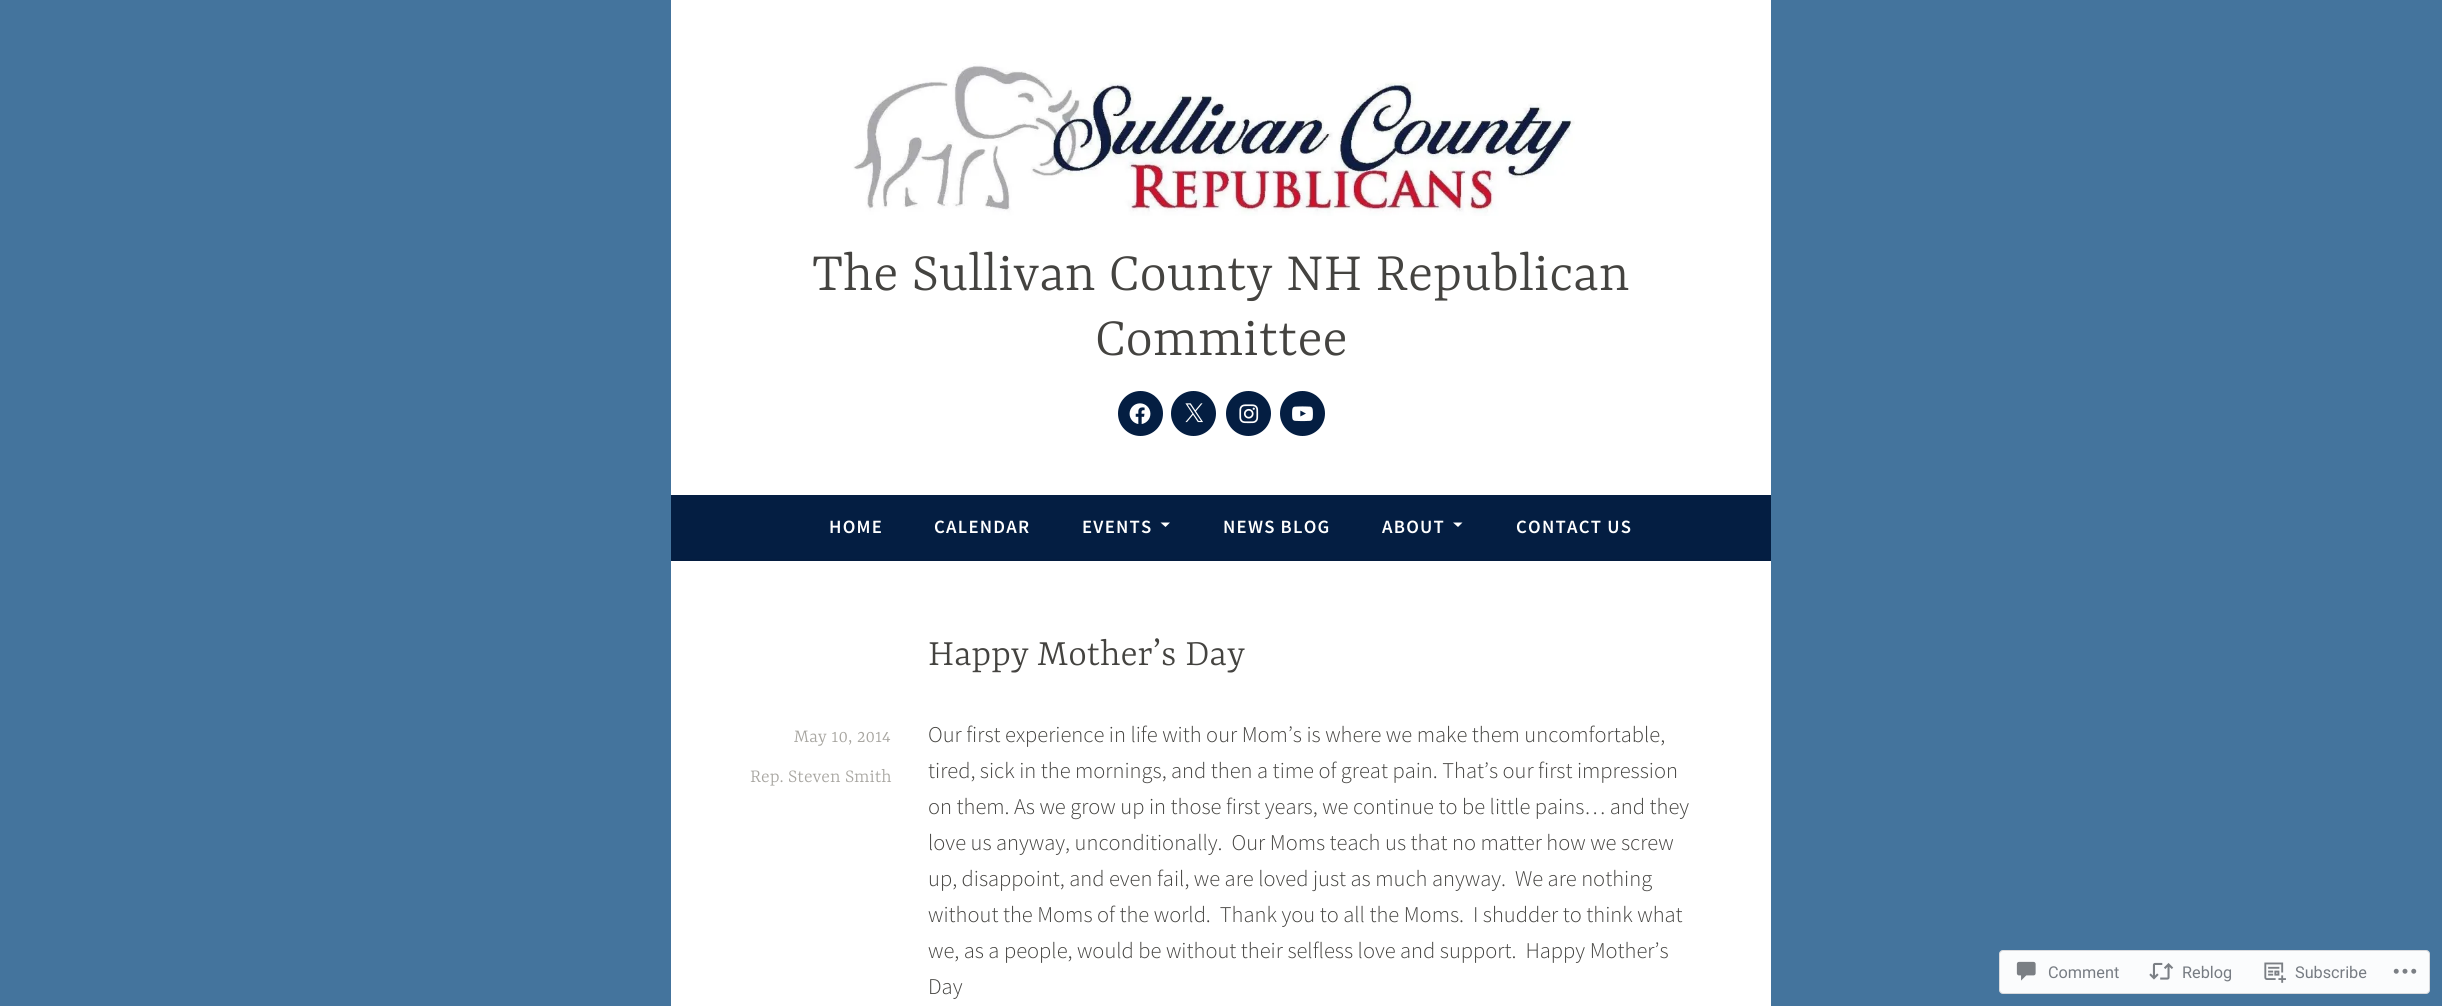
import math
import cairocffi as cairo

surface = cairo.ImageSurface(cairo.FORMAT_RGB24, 2442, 1006)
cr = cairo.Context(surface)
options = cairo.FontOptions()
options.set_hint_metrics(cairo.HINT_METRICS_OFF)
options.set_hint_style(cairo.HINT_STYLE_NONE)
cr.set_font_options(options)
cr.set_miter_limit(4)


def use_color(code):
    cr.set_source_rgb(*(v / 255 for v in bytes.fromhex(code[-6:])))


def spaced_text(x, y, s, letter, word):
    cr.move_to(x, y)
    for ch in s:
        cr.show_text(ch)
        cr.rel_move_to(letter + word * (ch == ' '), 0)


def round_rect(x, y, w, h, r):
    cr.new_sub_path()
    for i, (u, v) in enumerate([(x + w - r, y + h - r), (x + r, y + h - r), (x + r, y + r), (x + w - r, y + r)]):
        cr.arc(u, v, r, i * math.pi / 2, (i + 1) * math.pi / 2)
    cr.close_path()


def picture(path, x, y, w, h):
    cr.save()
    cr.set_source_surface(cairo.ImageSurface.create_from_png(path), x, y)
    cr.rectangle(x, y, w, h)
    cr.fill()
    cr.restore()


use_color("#44749d")
cr.paint()
use_color("#ffffff")
cr.rectangle(671, 0, 1100, 495)
cr.fill()
picture("img1.png", 853, 63, 722, 153)
cr.select_font_face("Yrsa Light")
cr.set_font_size(58.75)
use_color("#444340")
cr.move_to(812, 290)
cr.show_text("The Sullivan County NH Republican")
cr.move_to(1095, 355)
cr.show_text("Committee")
use_color("#041e42")
cr.new_path()
cr.arc(1140.5, 413.5, 22.5, 0, 2 * math.pi)
cr.fill()
picture("img2.png", 1129, 403, 22, 21)
cr.arc(1193.5, 413.5, 22.5, 0, 2 * math.pi)
cr.fill()
picture("img3.png", 1185, 403, 18, 20)
cr.arc(1248.5, 413.5, 22.5, 0, 2 * math.pi)
cr.fill()
picture("img4.png", 1239, 404, 20, 20)
cr.arc(1302.5, 413.5, 22.5, 0, 2 * math.pi)
cr.fill()
picture("img5.png", 1292, 406, 21, 16)
cr.rectangle(671, 495, 1100, 64)
cr.fill()
use_color("#041d40")
cr.rectangle(671, 559, 1100, 2)
cr.fill()
cr.select_font_face("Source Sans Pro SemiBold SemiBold")
cr.set_font_size(18.75)
use_color("#ffffff")
spaced_text(829, 533, "HOME", 1.25, 0)
spaced_text(934, 533, "CALENDAR", 1.25, 0)
spaced_text(1082, 533, "EVENTS", 1.25, 0)
cr.new_path()
cr.move_to(1160.5, 522.5)
cr.line_to(1170, 522.5)
cr.line_to(1165.5, 527)
cr.close_path()
cr.fill()
spaced_text(1223, 533, "NEWS BLOG", 1.25, 0)
spaced_text(1382, 533, "ABOUT", 1.25, 0)
cr.new_path()
cr.move_to(1453, 522.5)
cr.line_to(1462.5, 522.5)
cr.line_to(1458, 527)
cr.close_path()
cr.fill()
spaced_text(1516, 533, "CONTACT US", 1.25, 0)
cr.rectangle(671, 561, 1100, 445)
cr.fill()
cr.select_font_face("Yrsa Light")
cr.set_font_size(40)
use_color("#444340")
cr.move_to(928, 665)
cr.show_text("Happy Mother’s Day")
cr.set_font_size(20)
use_color("#a8a6a1")
cr.move_to(794, 742)
cr.show_text("May 10, 2014")
cr.move_to(750, 782)
cr.show_text("Rep. Steven Smith")
cr.select_font_face("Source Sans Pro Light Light")
cr.set_font_size(22.5)
use_color("#444340")
cr.move_to(928, 742)
cr.show_text("Our first experience in life with our Mom’s is where we make them uncomfortable,")
cr.move_to(928, 778)
cr.show_text("tired, sick in the mornings, and then a time of great pain. That’s our first impression")
cr.move_to(928, 814)
cr.show_text("on them. As we grow up in those first years, we continue to be little pains… and they")
cr.move_to(928, 850)
cr.show_text("love us anyway, unconditionally.  Our Moms teach us that no matter how we screw")
cr.move_to(928, 886)
cr.show_text("up, disappoint, and even fail, we are loved just as much anyway.  We are nothing")
cr.move_to(928, 922)
cr.show_text("without the Moms of the world.  Thank you to all the Moms.  I shudder to think what")
cr.move_to(928, 958)
cr.show_text("we, as a people, would be without their selfless love and support.  Happy Mother’s")
cr.move_to(928, 994)
cr.show_text("Day")
use_color("#fbfcfd")
round_rect(1999.5, 950.5, 430, 43, 3.5)
cr.fill_preserve()
use_color("#d9dadd")
cr.set_line_width(1)
cr.stroke()
picture("img6.png", 2016, 961, 20, 20)
cr.select_font_face("Roboto")
cr.set_font_size(16.25)
use_color("#777c83")
cr.move_to(2048, 978)
cr.show_text("Comment")
picture("img7.png", 2149, 962, 25, 18)
cr.move_to(2182, 978)
cr.show_text("Reblog")
picture("img8.png", 2264, 962, 22, 21)
cr.move_to(2295, 978)
cr.show_text("Subscribe")
picture("img9.png", 2393, 968, 24, 6)
surface.write_to_png("result.png")
